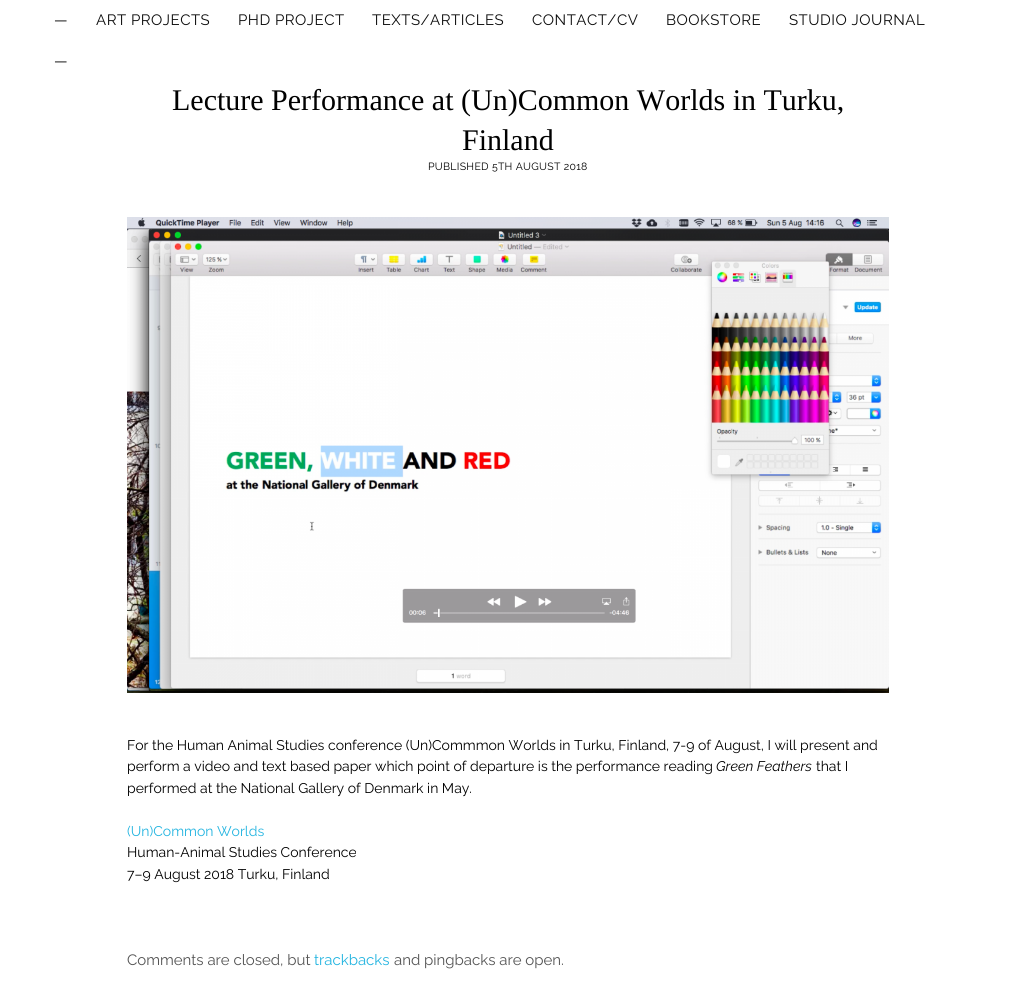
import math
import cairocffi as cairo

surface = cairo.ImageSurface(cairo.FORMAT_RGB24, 1016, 1002)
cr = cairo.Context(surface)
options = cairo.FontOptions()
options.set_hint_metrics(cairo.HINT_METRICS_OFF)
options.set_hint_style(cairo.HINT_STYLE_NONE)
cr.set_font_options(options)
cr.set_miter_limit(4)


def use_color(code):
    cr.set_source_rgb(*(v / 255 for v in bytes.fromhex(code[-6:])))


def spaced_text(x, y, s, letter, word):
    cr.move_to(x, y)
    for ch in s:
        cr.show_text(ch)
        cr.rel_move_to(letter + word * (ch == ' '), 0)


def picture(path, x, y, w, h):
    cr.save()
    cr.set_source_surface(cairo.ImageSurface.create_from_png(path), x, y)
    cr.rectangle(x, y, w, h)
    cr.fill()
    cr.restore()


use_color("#ffffff")
cr.paint()
cr.select_font_face("Raleway Thin")
cr.set_font_size(15)
use_color("#0d0d0d")
spaced_text(54, 25, "—", 0.5, 0)
spaced_text(96, 25, "ART PROJECTS", 0.5, 0)
spaced_text(238, 25, "PHD PROJECT", 0.5, 0)
spaced_text(372, 25, "TEXTS/ARTICLES", 0.5, 0)
spaced_text(532, 25, "CONTACT/CV", 0.5, 0)
spaced_text(666, 25, "BOOKSTORE", 0.5, 0)
spaced_text(789, 25, "STUDIO JOURNAL", 0.5, 0)
spaced_text(54, 66, "—", 0.5, 0)
cr.select_font_face("Liberation Serif")
cr.set_font_size(30)
use_color("#000000")
cr.move_to(172, 110)
cr.show_text("Lecture Performance at (Un)Common Worlds in Turku,")
cr.move_to(462, 150)
cr.show_text("Finland")
cr.select_font_face("Raleway Thin")
cr.set_font_size(10.5)
spaced_text(428, 170, "PUBLISHED 5TH AUGUST 2018", 0.3, 0)
picture("img1.png", 127, 217, 762, 476)
cr.set_font_size(14)
cr.move_to(127, 750)
cr.show_text("For the Human Animal Studies conference (Un)Commmon Worlds in Turku, Finland, 7-9 of August, I will present and")
cr.move_to(127, 771)
cr.show_text("perform a video and text based paper which point of departure is the performance reading")
cr.select_font_face("Raleway Thin", cairo.FONT_SLANT_ITALIC)
cr.move_to(716, 771)
cr.show_text("Green Feathers")
cr.select_font_face("Raleway Thin")
cr.move_to(816, 771)
cr.show_text("that I")
cr.move_to(127, 793)
cr.show_text("performed at the National Gallery of Denmark in May.")
use_color("#23b4e0")
cr.move_to(127, 836)
cr.show_text("(Un)Common Worlds")
use_color("#000000")
cr.move_to(127, 857)
cr.show_text("Human-Animal Studies Conference")
cr.move_to(127, 879)
cr.show_text("7–9 August 2018 Turku, Finland")
cr.set_font_size(15)
use_color("#545454")
cr.move_to(127, 965)
cr.show_text("Comments are closed, but")
use_color("#23b4e0")
cr.move_to(314, 965)
cr.show_text("trackbacks")
use_color("#545454")
cr.move_to(394, 965)
cr.show_text("and pingbacks are open.")
surface.write_to_png("result.png")
